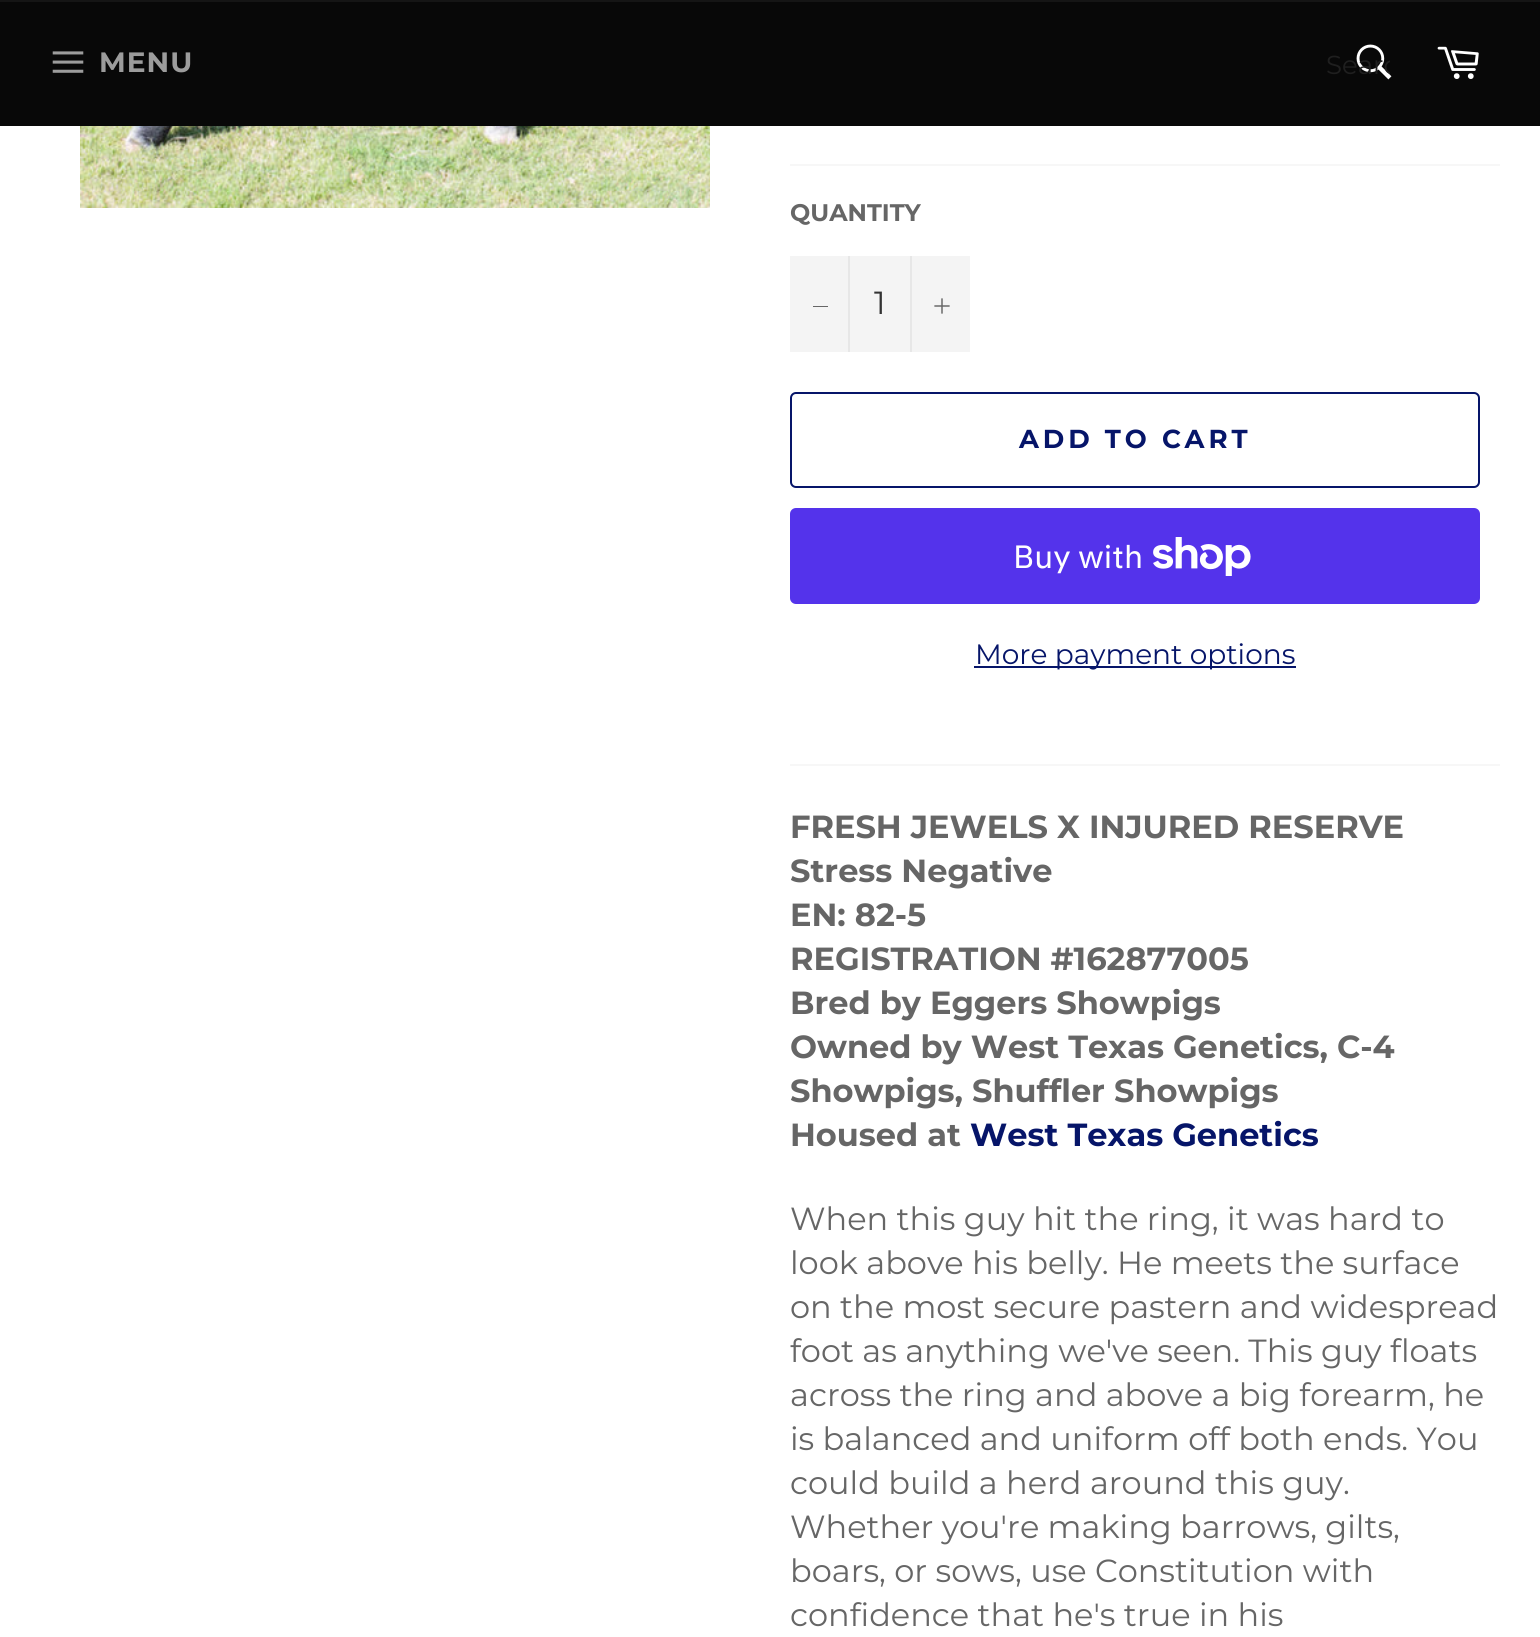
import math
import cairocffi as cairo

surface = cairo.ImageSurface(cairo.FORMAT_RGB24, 1540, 1637)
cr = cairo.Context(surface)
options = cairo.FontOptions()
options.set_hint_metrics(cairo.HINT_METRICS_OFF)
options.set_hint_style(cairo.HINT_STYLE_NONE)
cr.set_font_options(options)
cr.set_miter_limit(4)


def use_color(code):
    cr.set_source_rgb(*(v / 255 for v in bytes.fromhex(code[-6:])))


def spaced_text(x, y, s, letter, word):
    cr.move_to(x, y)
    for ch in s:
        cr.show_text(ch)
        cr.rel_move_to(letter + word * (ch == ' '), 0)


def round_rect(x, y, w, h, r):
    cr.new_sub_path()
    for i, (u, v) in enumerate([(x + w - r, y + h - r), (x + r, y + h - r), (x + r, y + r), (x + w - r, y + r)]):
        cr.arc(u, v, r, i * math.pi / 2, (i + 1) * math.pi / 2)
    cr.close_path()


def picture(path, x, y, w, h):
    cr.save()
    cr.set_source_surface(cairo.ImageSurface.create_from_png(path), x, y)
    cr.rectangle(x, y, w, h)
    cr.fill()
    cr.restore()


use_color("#ffffff")
cr.paint()
use_color("#080808")
cr.rectangle(0, 2, 1540, 124)
cr.fill()
use_color("#151515")
cr.rectangle(0, 0, 1540, 2)
cr.fill()
picture("img1.png", 52, 51, 32, 22)
cr.select_font_face("Montserrat", cairo.FONT_SLANT_NORMAL, cairo.FONT_WEIGHT_BOLD)
cr.set_font_size(28)
use_color("#9c9c9c")
spaced_text(99, 72, "MENU", 1, 0)
picture("img2.png", 1356, 44, 36, 36)
cr.save()
cr.rectangle(1326, 48, 64, 32)
cr.clip()
cr.select_font_face("Montserrat")
cr.set_font_size(26)
use_color("#1f1f1f")
cr.move_to(1326, 74)
cr.show_text("Searc")
cr.restore()
picture("img3.png", 1437, 46, 42, 33)
picture("img4.png", 80, 126, 630, 82)
use_color("#f7f7f7")
cr.rectangle(790, 164, 710, 2)
cr.fill()
cr.set_font_size(24)
use_color("#666666")
cr.move_to(790, 221)
cr.show_text("QUANTITY")
use_color("#f4f4f4")
cr.rectangle(790, 256, 180, 96)
cr.fill()
use_color("#e7e7e7")
cr.rectangle(848, 256, 2, 96)
cr.fill()
use_color("#666666")
cr.rectangle(813, 306, 15, 1)
cr.fill()
cr.select_font_face("Montserrat")
cr.set_font_size(32)
use_color("#333333")
cr.move_to(874, 314)
cr.show_text("1")
use_color("#e7e7e7")
cr.rectangle(910, 256, 2, 96)
cr.fill()
picture("img5.png", 934, 298, 16, 16)
round_rect(791, 393, 688, 94, 5)
use_color("#061569")
cr.stroke()
cr.select_font_face("Montserrat", cairo.FONT_SLANT_NORMAL, cairo.FONT_WEIGHT_BOLD)
cr.set_font_size(26)
spaced_text(1019, 448, "ADD TO CART", 3.9, 0)
use_color("#5433eb")
round_rect(790, 508, 690, 96, 6)
cr.fill()
cr.select_font_face("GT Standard")
cr.set_font_size(32)
use_color("#ffffff")
cr.move_to(1013, 568)
cr.show_text("Buy with")
picture("img6.png", 1153, 537, 98, 39)
use_color("#061569")
cr.rectangle(974, 666, 322, 2)
cr.fill()
cr.select_font_face("Montserrat")
cr.set_font_size(28)
cr.move_to(975, 664)
cr.show_text("More payment options")
use_color("#f7f7f7")
cr.rectangle(790, 764, 710, 2)
cr.fill()
cr.select_font_face("Montserrat", cairo.FONT_SLANT_NORMAL, cairo.FONT_WEIGHT_BOLD)
cr.set_font_size(32)
use_color("#666666")
cr.move_to(790, 838)
cr.show_text("FRESH JEWELS X INJURED RESERVE")
cr.move_to(790, 882)
cr.show_text("Stress Negative")
cr.move_to(790, 926)
cr.show_text("EN: 82-5")
cr.move_to(790, 970)
cr.show_text("REGISTRATION #162877005")
cr.move_to(790, 1014)
cr.show_text("Bred by Eggers Showpigs")
cr.move_to(790, 1058)
cr.show_text("Owned by West Texas Genetics, C-4")
cr.move_to(790, 1102)
cr.show_text("Showpigs, Shuffler Showpigs")
cr.move_to(790, 1146)
cr.show_text("Housed at")
use_color("#061569")
cr.move_to(970, 1146)
cr.show_text("West Texas Genetics")
cr.select_font_face("Montserrat")
use_color("#666666")
cr.move_to(790, 1230)
cr.show_text("When this guy hit the ring, it was hard to")
cr.move_to(790, 1274)
cr.show_text("look above his belly. He meets the surface")
cr.move_to(790, 1318)
cr.show_text("on the most secure pastern and widespread")
cr.move_to(790, 1362)
cr.show_text("foot as anything we've seen. This guy floats")
cr.move_to(790, 1406)
cr.show_text("across the ring and above a big forearm, he")
cr.move_to(790, 1450)
cr.show_text("is balanced and uniform off both ends. You")
cr.move_to(790, 1494)
cr.show_text("could build a herd around this guy.")
cr.move_to(790, 1538)
cr.show_text("Whether you're making barrows, gilts,")
cr.move_to(790, 1582)
cr.show_text("boars, or sows, use Constitution with")
cr.move_to(790, 1626)
cr.show_text("confidence that he's true in his")
surface.write_to_png("result.png")
